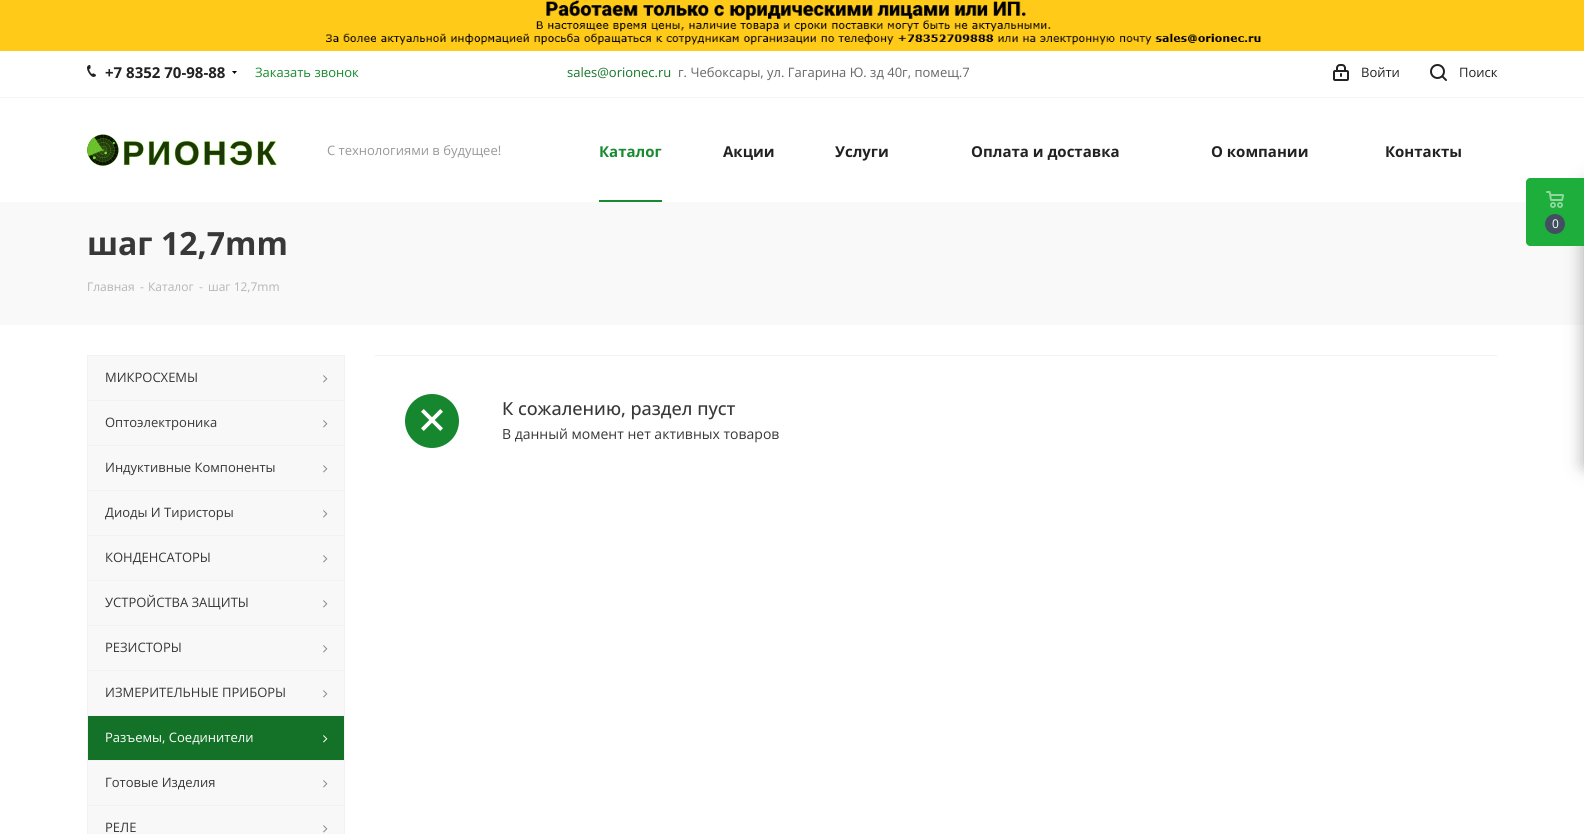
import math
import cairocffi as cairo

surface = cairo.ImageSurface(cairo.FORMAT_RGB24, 1584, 834)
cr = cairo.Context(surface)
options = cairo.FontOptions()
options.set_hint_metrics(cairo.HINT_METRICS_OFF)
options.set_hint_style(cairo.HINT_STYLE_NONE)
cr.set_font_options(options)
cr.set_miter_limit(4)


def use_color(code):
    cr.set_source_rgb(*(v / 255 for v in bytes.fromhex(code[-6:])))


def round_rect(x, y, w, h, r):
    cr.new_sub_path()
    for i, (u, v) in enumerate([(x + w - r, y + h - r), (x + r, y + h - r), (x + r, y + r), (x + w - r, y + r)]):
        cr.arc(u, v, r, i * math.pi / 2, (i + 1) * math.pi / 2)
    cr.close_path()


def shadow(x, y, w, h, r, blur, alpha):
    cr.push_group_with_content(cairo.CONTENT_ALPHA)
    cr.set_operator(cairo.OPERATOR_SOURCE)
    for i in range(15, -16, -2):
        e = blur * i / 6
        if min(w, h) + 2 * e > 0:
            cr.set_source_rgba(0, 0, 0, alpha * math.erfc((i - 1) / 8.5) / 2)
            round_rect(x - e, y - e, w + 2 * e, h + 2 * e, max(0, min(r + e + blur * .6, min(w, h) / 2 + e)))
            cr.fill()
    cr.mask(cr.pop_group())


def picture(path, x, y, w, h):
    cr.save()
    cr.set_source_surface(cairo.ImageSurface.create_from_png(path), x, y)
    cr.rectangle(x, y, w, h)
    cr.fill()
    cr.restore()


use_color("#ffffff")
cr.paint()
picture("img1.png", 0, 0, 1584, 51)
use_color("#f6f6f6")
cr.rectangle(0, 97, 1584, 1)
cr.fill()
picture("img2.png", 87, 65, 9, 12)
cr.select_font_face("Open Sans", cairo.FONT_SLANT_NORMAL, cairo.FONT_WEIGHT_BOLD)
cr.set_font_size(15)
use_color("#222222")
cr.move_to(105, 78)
cr.show_text("+7 8352 70-98-88")
picture("img3.png", 232, 71, 5, 3)
cr.select_font_face("Open Sans")
cr.set_font_size(13)
use_color("#188b30")
cr.move_to(255, 77)
cr.show_text("Заказать звонок")
use_color("#147628")
cr.move_to(567, 77)
cr.show_text("sales@orionec.ru")
use_color("#666666")
cr.move_to(678, 77)
cr.show_text("г. Чебоксары, ул. Гагарина Ю. зд 40г, помещ.7")
picture("img4.png", 1333, 64, 16, 17)
use_color("#222222")
cr.move_to(1361, 77)
cr.show_text("Войти")
picture("img5.png", 1430, 64, 17, 17)
cr.move_to(1459, 77)
cr.show_text("Поиск")
picture("img6.png", 87, 134, 190, 32)
use_color("#999999")
cr.move_to(327, 155)
cr.show_text("С технологиями в будущее!")
cr.select_font_face("Open Sans", cairo.FONT_SLANT_NORMAL, cairo.FONT_WEIGHT_BOLD)
cr.set_font_size(15)
use_color("#188b30")
cr.move_to(599, 157)
cr.show_text("Каталог")
cr.rectangle(599, 200, 63, 2)
cr.fill()
use_color("#222222")
cr.move_to(723, 157)
cr.show_text("Акции")
cr.move_to(835, 157)
cr.show_text("Услуги")
cr.move_to(971, 157)
cr.show_text("Оплата и доставка")
cr.move_to(1211, 157)
cr.show_text("О компании")
cr.move_to(1385, 157)
cr.show_text("Контакты")
use_color("#f9f9f9")
cr.rectangle(0, 202, 1584, 123)
cr.fill()
cr.set_font_size(32)
use_color("#383838")
cr.move_to(87, 255)
cr.show_text("шаг 12,7mm")
cr.select_font_face("Open Sans")
cr.set_font_size(12)
use_color("#b6b5b5")
cr.move_to(87, 291)
cr.show_text("Главная")
cr.move_to(140, 291)
cr.show_text("-")
cr.move_to(148, 291)
cr.show_text("Каталог")
cr.move_to(199, 291)
cr.show_text("-")
cr.move_to(208, 291)
cr.show_text("шаг 12,7mm")
use_color("#f8f8f9")
cr.rectangle(88, 356, 256, 44)
cr.fill()
use_color("#f2f2f2")
cr.rectangle(87, 355, 258, 1)
cr.fill()
cr.rectangle(344, 355, 1, 45)
cr.fill()
cr.rectangle(87, 355, 1, 45)
cr.fill()
cr.set_font_size(13)
use_color("#383838")
cr.move_to(105, 382)
cr.show_text("МИКРОСХЕМЫ")
picture("img7.png", 323, 375, 5, 8)
use_color("#f8f8f9")
cr.rectangle(88, 401, 256, 44)
cr.fill()
use_color("#f2f2f2")
cr.rectangle(87, 400, 258, 1)
cr.fill()
cr.rectangle(344, 400, 1, 45)
cr.fill()
cr.rectangle(87, 400, 1, 45)
cr.fill()
use_color("#383838")
cr.move_to(105, 427)
cr.show_text("Оптоэлектроника")
picture("img7.png", 323, 420, 5, 8)
use_color("#f8f8f9")
cr.rectangle(88, 446, 256, 44)
cr.fill()
use_color("#f2f2f2")
cr.rectangle(87, 445, 258, 1)
cr.fill()
cr.rectangle(344, 445, 1, 45)
cr.fill()
cr.rectangle(87, 445, 1, 45)
cr.fill()
use_color("#383838")
cr.move_to(105, 472)
cr.show_text("Индуктивные Компоненты")
picture("img7.png", 323, 465, 5, 8)
use_color("#f8f8f9")
cr.rectangle(88, 491, 256, 44)
cr.fill()
use_color("#f2f2f2")
cr.rectangle(87, 490, 258, 1)
cr.fill()
cr.rectangle(344, 490, 1, 45)
cr.fill()
cr.rectangle(87, 490, 1, 45)
cr.fill()
use_color("#383838")
cr.move_to(105, 517)
cr.show_text("Диоды И Тиристоры")
picture("img7.png", 323, 510, 5, 8)
use_color("#f8f8f9")
cr.rectangle(88, 536, 256, 44)
cr.fill()
use_color("#f2f2f2")
cr.rectangle(87, 535, 258, 1)
cr.fill()
cr.rectangle(344, 535, 1, 45)
cr.fill()
cr.rectangle(87, 535, 1, 45)
cr.fill()
use_color("#383838")
cr.move_to(105, 562)
cr.show_text("КОНДЕНСАТОРЫ")
picture("img7.png", 323, 555, 5, 8)
use_color("#f8f8f9")
cr.rectangle(88, 581, 256, 44)
cr.fill()
use_color("#f2f2f2")
cr.rectangle(87, 580, 258, 1)
cr.fill()
cr.rectangle(344, 580, 1, 45)
cr.fill()
cr.rectangle(87, 580, 1, 45)
cr.fill()
use_color("#383838")
cr.move_to(105, 607)
cr.show_text("УСТРОЙСТВА ЗАЩИТЫ")
picture("img7.png", 323, 600, 5, 8)
use_color("#f8f8f9")
cr.rectangle(88, 626, 256, 44)
cr.fill()
use_color("#f2f2f2")
cr.rectangle(87, 625, 258, 1)
cr.fill()
cr.rectangle(344, 625, 1, 45)
cr.fill()
cr.rectangle(87, 625, 1, 45)
cr.fill()
use_color("#383838")
cr.move_to(105, 652)
cr.show_text("РЕЗИСТОРЫ")
picture("img7.png", 323, 645, 5, 8)
use_color("#f8f8f9")
cr.rectangle(88, 671, 256, 44)
cr.fill()
use_color("#f2f2f2")
cr.rectangle(87, 670, 258, 1)
cr.fill()
cr.rectangle(344, 670, 1, 45)
cr.fill()
cr.rectangle(87, 670, 1, 45)
cr.fill()
use_color("#383838")
cr.move_to(105, 697)
cr.show_text("ИЗМЕРИТЕЛЬНЫЕ ПРИБОРЫ")
picture("img7.png", 323, 690, 5, 8)
use_color("#137227")
cr.rectangle(88, 716, 256, 44)
cr.fill()
use_color("#f2f2f2")
cr.rectangle(87, 715, 258, 1)
cr.fill()
cr.rectangle(344, 715, 1, 45)
cr.fill()
cr.rectangle(87, 715, 1, 45)
cr.fill()
use_color("#ffffff")
cr.move_to(105, 742)
cr.show_text("Разъемы, Соединители")
picture("img8.png", 323, 735, 5, 8)
use_color("#f8f8f9")
cr.rectangle(88, 761, 256, 44)
cr.fill()
use_color("#f2f2f2")
cr.rectangle(87, 760, 258, 1)
cr.fill()
cr.rectangle(344, 760, 1, 45)
cr.fill()
cr.rectangle(87, 760, 1, 45)
cr.fill()
use_color("#383838")
cr.move_to(105, 787)
cr.show_text("Готовые Изделия")
picture("img7.png", 323, 780, 5, 8)
use_color("#f8f8f9")
cr.rectangle(88, 806, 256, 28)
cr.fill()
use_color("#f2f2f2")
cr.rectangle(87, 805, 258, 1)
cr.fill()
cr.rectangle(344, 805, 1, 29)
cr.fill()
cr.rectangle(87, 805, 1, 29)
cr.fill()
use_color("#383838")
cr.move_to(105, 832)
cr.show_text("РЕЛЕ")
picture("img7.png", 323, 825, 5, 8)
use_color("#f2f2f2")
cr.rectangle(375, 355, 1122, 1)
cr.fill()
use_color("#16872e")
cr.arc(432, 421, 27, 0, 2 * math.pi)
cr.fill()
cr.select_font_face("Open Sans Medium")
cr.set_font_size(18)
use_color("#383838")
cr.move_to(502, 415)
cr.show_text("К сожалению, раздел пуст")
cr.select_font_face("Open Sans")
cr.set_font_size(14)
cr.move_to(502, 439)
cr.show_text("В данный момент нет активных товаров")
picture("img9.png", 421, 409, 22, 22)
use_color("#2c2c2c")
shadow(1584, 184, 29, 283, 2, 9, 0.4)
use_color("#1eae3c")
cr.new_path()
cr.move_to(1530, 178)
cr.line_to(1584, 178)
cr.line_to(1584, 246)
cr.line_to(1530, 246)
cr.curve_to(1528, 246, 1526, 244, 1526, 242)
cr.line_to(1526, 182)
cr.curve_to(1526, 180, 1528, 178, 1530, 178)
cr.close_path()
cr.fill()
picture("img10.png", 1546, 191, 18, 17)
use_color("#424f60")
cr.arc(1555, 224, 10, 0, 2 * math.pi)
cr.fill()
cr.set_font_size(12)
use_color("#ffffff")
cr.move_to(1552, 228)
cr.show_text("0")
surface.write_to_png("result.png")
